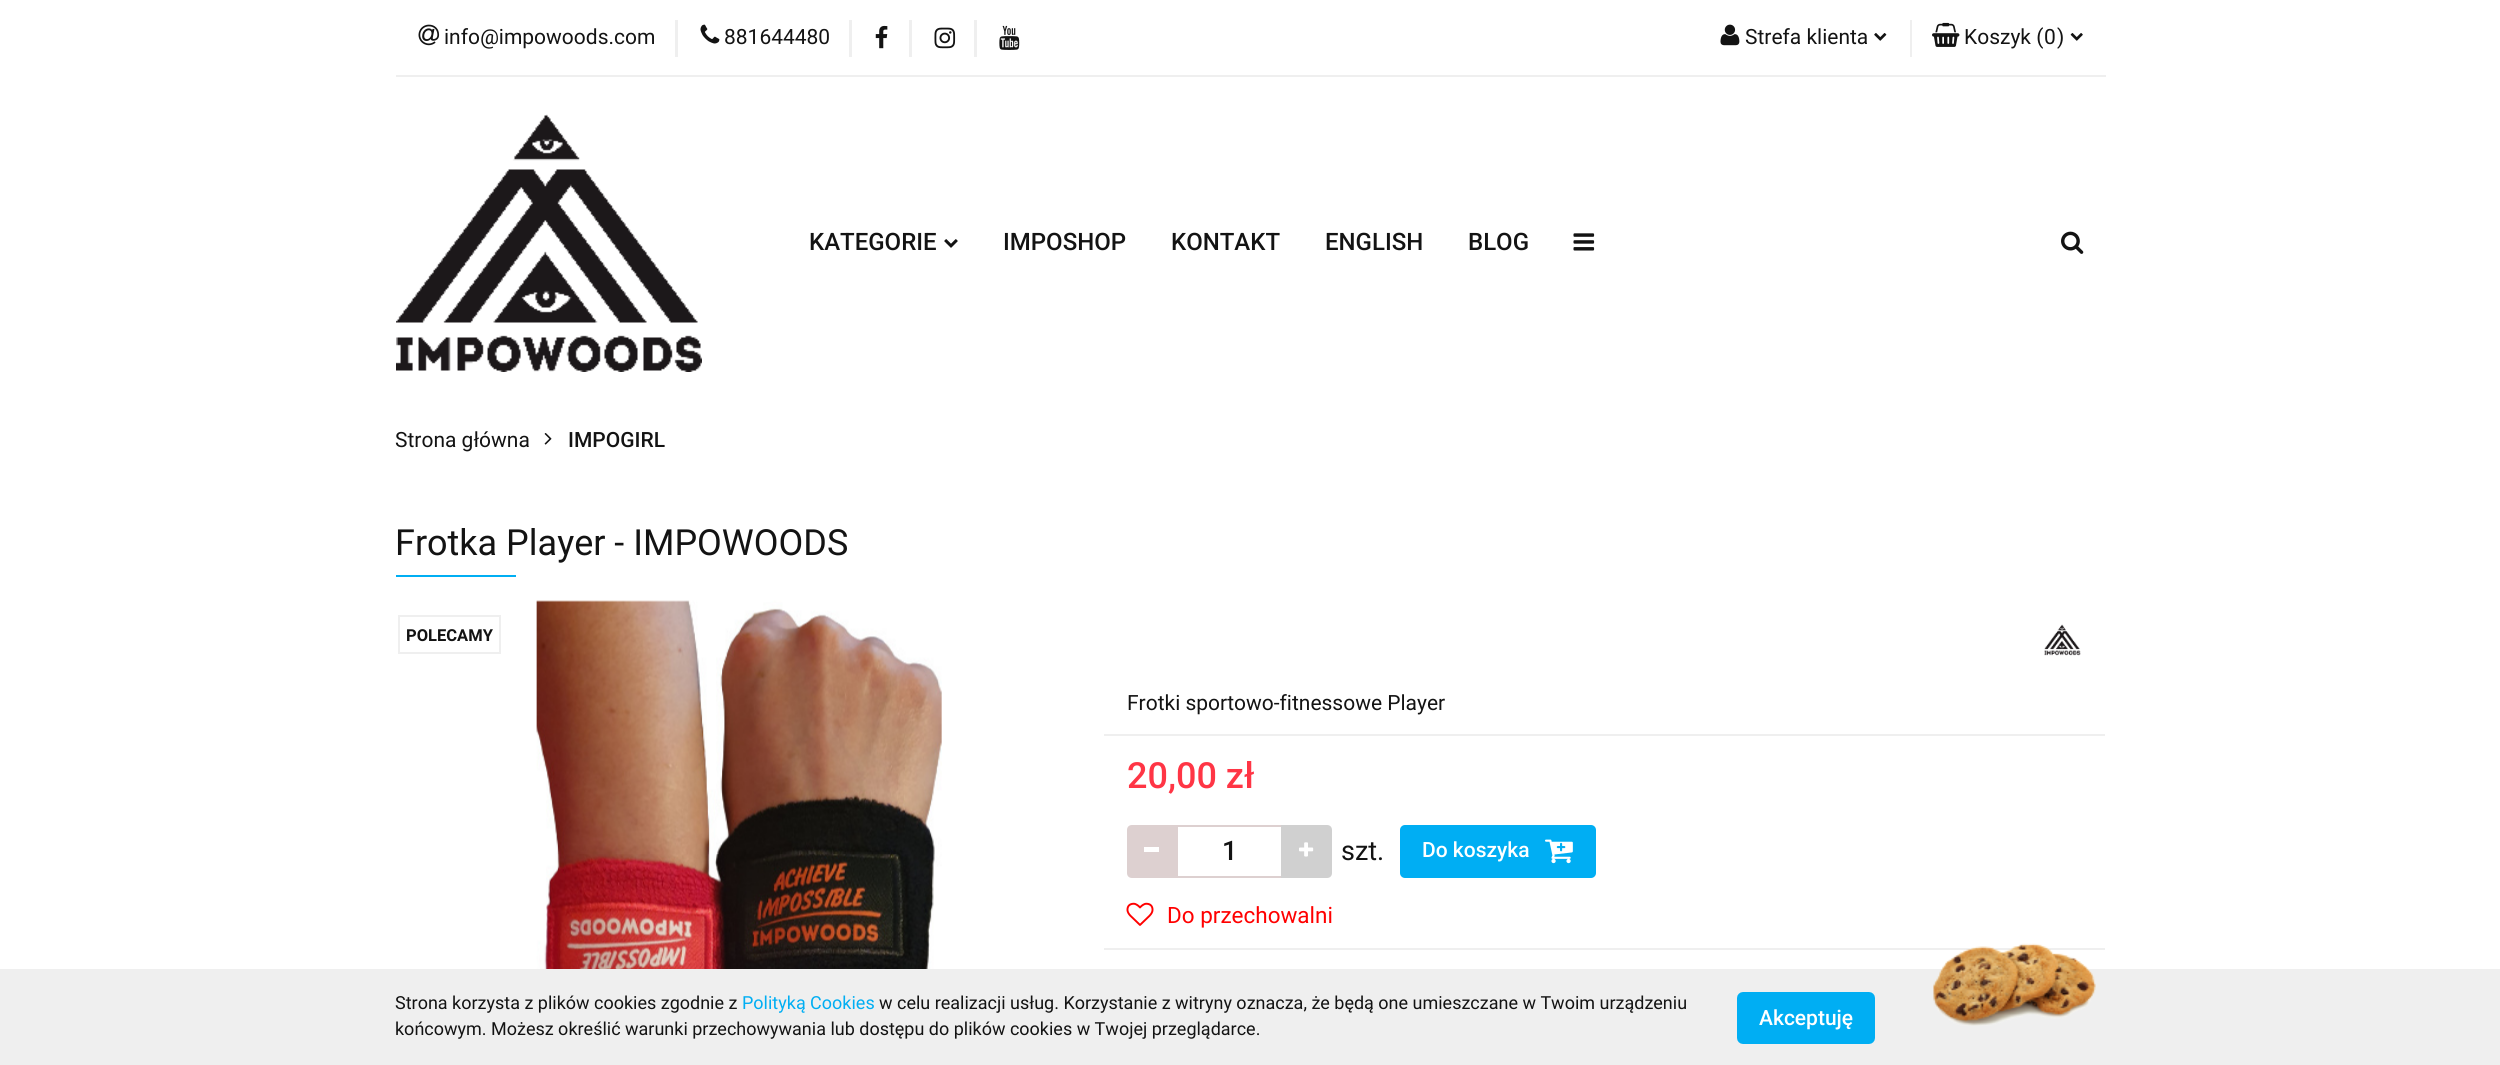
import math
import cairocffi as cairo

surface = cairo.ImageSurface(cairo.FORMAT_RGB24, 2500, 1065)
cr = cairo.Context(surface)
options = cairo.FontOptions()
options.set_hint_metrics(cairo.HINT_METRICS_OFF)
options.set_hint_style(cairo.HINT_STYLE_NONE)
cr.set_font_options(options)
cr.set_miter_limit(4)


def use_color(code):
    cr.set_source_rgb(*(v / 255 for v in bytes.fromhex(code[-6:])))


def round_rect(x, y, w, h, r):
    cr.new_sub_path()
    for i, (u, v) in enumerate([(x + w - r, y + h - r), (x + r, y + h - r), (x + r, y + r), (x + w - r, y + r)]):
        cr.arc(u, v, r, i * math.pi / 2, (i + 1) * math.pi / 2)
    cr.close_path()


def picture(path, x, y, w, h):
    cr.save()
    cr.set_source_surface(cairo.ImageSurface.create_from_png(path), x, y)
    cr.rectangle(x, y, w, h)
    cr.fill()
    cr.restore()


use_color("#ffffff")
cr.paint()
use_color("#efefef")
cr.rectangle(396, 75, 1710, 2)
cr.fill()
picture("img1.png", 418, 24, 22, 22)
cr.select_font_face("Roboto")
cr.set_font_size(21)
use_color("#131313")
cr.move_to(444, 44)
cr.show_text("info@impowoods.com")
use_color("#efefef")
cr.rectangle(675, 20, 3, 37)
cr.fill()
picture("img2.png", 700, 24, 20, 20)
use_color("#131313")
cr.move_to(724, 44)
cr.show_text("881644480")
use_color("#efefef")
cr.rectangle(849, 20, 3, 37)
cr.fill()
picture("img3.png", 875, 25, 13, 24)
cr.rectangle(909, 20, 3, 37)
cr.fill()
picture("img4.png", 934, 27, 22, 22)
cr.rectangle(974, 20, 3, 37)
cr.fill()
picture("img5.png", 999, 25, 21, 25)
picture("img6.png", 1720, 24, 20, 22)
use_color("#131313")
cr.move_to(1745, 44)
cr.show_text("Strefa klienta")
picture("img7.png", 1874, 33, 13, 8)
use_color("#efefef")
cr.rectangle(1910, 20, 2, 37)
cr.fill()
picture("img8.png", 1932, 22, 28, 25)
use_color("#131313")
cr.move_to(1964, 44)
cr.show_text("Koszyk (")
cr.move_to(2044, 44)
cr.show_text("0")
cr.move_to(2057, 44)
cr.show_text(")")
picture("img9.png", 2070, 33, 13, 8)
picture("img10.png", 396, 114, 306, 258)
cr.select_font_face("Roboto Medium")
cr.set_font_size(24)
cr.move_to(809, 250)
cr.show_text("KATEGORIE")
picture("img11.png", 944, 239, 14, 9)
cr.move_to(1003, 250)
cr.show_text("IMPOSHOP")
cr.move_to(1171, 250)
cr.show_text("KONTAKT")
cr.move_to(1325, 250)
cr.show_text("ENGLISH")
cr.move_to(1468, 250)
cr.show_text("BLOG")
picture("img12.png", 1573, 233, 22, 18)
picture("img13.png", 2061, 231, 23, 23)
cr.select_font_face("Roboto")
cr.set_font_size(21)
cr.move_to(395, 447)
cr.show_text("Strona główna")
picture("img14.png", 544, 433, 8, 12)
cr.select_font_face("Roboto Medium")
cr.move_to(568, 447)
cr.show_text("IMPOGIRL")
cr.select_font_face("Roboto")
cr.set_font_size(36)
cr.move_to(395, 555)
cr.show_text("Frotka Player - IMPOWOODS")
use_color("#00aef3")
cr.rectangle(396, 575, 120, 2)
cr.fill()
cr.rectangle(399, 616, 101, 37)
use_color("#efefef")
cr.stroke()
cr.select_font_face("Roboto", cairo.FONT_SLANT_NORMAL, cairo.FONT_WEIGHT_BOLD)
cr.set_font_size(16.5)
use_color("#131313")
cr.move_to(406, 641)
cr.show_text("POLECAMY")
picture("img15.png", 536, 600, 406, 369)
use_color("#efefef")
cr.rectangle(1104, 734, 1001, 2)
cr.fill()
picture("img16.png", 2044, 624, 37, 32)
cr.select_font_face("Roboto")
cr.set_font_size(21)
use_color("#131313")
cr.move_to(1127, 710)
cr.show_text("Frotki sportowo-fitnessowe Player")
use_color("#efefef")
cr.rectangle(1104, 948, 1001, 2)
cr.fill()
cr.select_font_face("Roboto Medium")
cr.set_font_size(36)
use_color("#ff3545")
cr.move_to(1127, 788)
cr.show_text("20,00 zł")
use_color("#ddd0d0")
cr.new_path()
cr.move_to(1132, 825)
cr.line_to(1178, 825)
cr.line_to(1178, 878)
cr.line_to(1132, 878)
cr.curve_to(1129, 878, 1127, 876, 1127, 873)
cr.line_to(1127, 830)
cr.curve_to(1127, 827, 1129, 825, 1132, 825)
cr.close_path()
cr.fill()
cr.rectangle(1178, 825, 103, 2)
cr.fill()
use_color("#ffffff")
cr.rectangle(1144, 847, 15, 5)
cr.fill()
use_color("#ddd0d0")
cr.rectangle(1178, 876, 103, 2)
cr.fill()
use_color("#d0d0d0")
cr.new_path()
cr.move_to(1281, 825)
cr.line_to(1327, 825)
cr.curve_to(1330, 825, 1332, 827, 1332, 830)
cr.line_to(1332, 873)
cr.curve_to(1332, 876, 1330, 878, 1327, 878)
cr.line_to(1281, 878)
cr.close_path()
cr.fill()
picture("img17.png", 1299, 842, 15, 15)
cr.set_font_size(27)
use_color("#131313")
cr.move_to(1222, 860)
cr.show_text("1")
cr.select_font_face("Roboto")
cr.move_to(1341, 860)
cr.show_text("szt.")
use_color("#00aef3")
round_rect(1400, 825, 196, 53, 5)
cr.fill()
cr.select_font_face("Roboto Medium")
cr.set_font_size(21)
use_color("#ffffff")
cr.move_to(1422, 857)
cr.show_text("Do koszyka")
picture("img18.png", 1545, 839, 28, 25)
picture("img19.png", 1126, 902, 28, 24)
cr.select_font_face("Roboto")
cr.set_font_size(22.5)
use_color("#ff0000")
cr.move_to(1167, 923)
cr.show_text("Do przechowalni")
use_color("#efefef")
cr.rectangle(0, 969, 2500, 96)
cr.fill()
cr.set_font_size(18)
use_color("#131313")
cr.move_to(395, 1009)
cr.show_text("Strona korzysta z plików cookies zgodnie z")
use_color("#00aef3")
cr.move_to(742, 1009)
cr.show_text("Polityką Cookies")
use_color("#131313")
cr.move_to(879, 1009)
cr.show_text("w celu realizacji usług. Korzystanie z witryny oznacza, że będą one umieszczane w Twoim urządzeniu")
cr.move_to(395, 1035)
cr.show_text("końcowym. Możesz określić warunki przechowywania lub dostępu do plików cookies w Twojej przeglądarce.")
use_color("#00aef3")
round_rect(1739.5, 994.5, 133, 47, 3.5)
cr.fill_preserve()
cr.set_line_width(5)
cr.stroke()
cr.select_font_face("Roboto Medium")
cr.set_font_size(21)
use_color("#ffffff")
cr.move_to(1759, 1025)
cr.show_text("Akceptuję")
picture("img20.png", 1933, 943, 163, 83)
surface.write_to_png("result.png")
